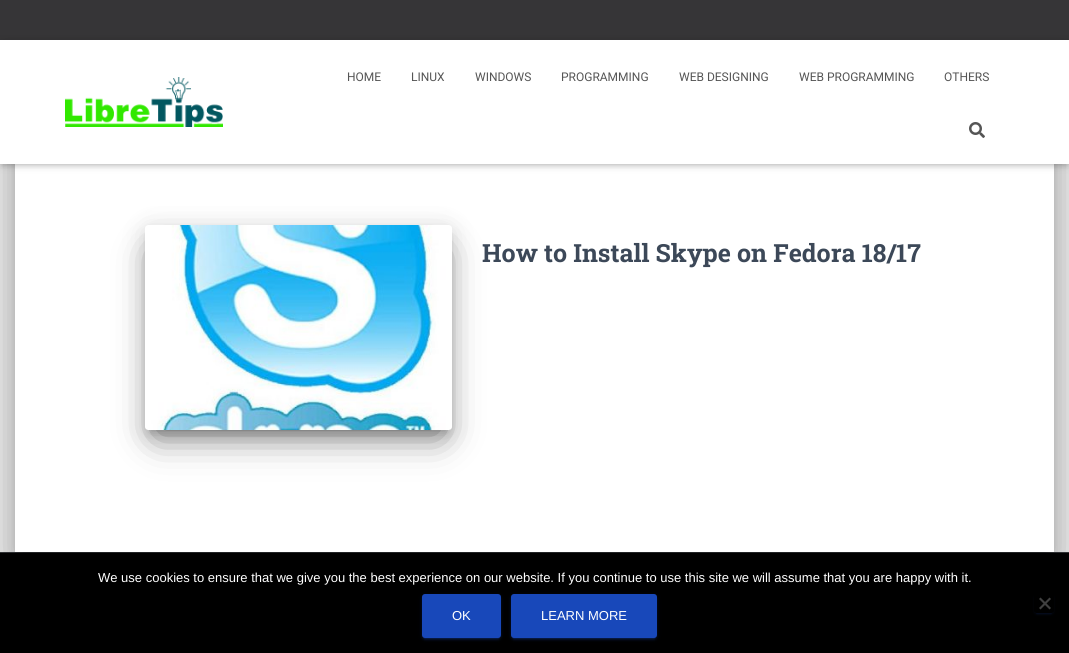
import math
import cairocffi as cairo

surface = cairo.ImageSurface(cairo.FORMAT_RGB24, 1069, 653)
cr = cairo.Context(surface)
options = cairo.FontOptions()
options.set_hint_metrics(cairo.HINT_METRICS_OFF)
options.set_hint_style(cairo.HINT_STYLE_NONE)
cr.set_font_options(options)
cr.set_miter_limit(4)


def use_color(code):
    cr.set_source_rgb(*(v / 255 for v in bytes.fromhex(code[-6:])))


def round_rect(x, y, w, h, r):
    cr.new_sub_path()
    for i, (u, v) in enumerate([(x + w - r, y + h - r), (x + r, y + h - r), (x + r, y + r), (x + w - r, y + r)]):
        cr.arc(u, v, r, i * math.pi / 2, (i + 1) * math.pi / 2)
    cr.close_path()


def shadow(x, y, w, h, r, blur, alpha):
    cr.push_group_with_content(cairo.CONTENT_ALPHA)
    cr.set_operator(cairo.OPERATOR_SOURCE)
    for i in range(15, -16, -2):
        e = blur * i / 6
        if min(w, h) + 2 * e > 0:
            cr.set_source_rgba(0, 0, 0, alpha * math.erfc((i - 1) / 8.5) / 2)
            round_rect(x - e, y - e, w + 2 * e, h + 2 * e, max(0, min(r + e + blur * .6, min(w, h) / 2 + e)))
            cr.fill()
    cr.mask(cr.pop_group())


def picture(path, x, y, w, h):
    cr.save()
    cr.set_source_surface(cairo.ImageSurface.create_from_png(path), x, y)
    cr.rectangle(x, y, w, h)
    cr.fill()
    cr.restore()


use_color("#e5e5e5")
cr.paint()
use_color("#363537")
cr.rectangle(0, 0, 1069, 40)
cr.fill()
use_color("#323437")
cr.rectangle(0, 552, 1069, 1)
cr.fill()
use_color("#000000")
shadow(20, 143, 1029, 412, 1, 5, 0.2)
shadow(10, 131, 1049, 432, 11, 15, 0.12)
shadow(13, 144, 1043, 426, 8, 12, 0.14)
use_color("#ffffff")
cr.rectangle(15, 164, 1039, 388)
cr.fill()
use_color("#000000")
shadow(2, 46, 1065, 120, 0, 2.5, 0.1)
shadow(0, 41, 1069, 124, 0, 5, 0.12)
shadow(6, 47, 1057, 112, 0, 5, 0.42)
use_color("#ffffff")
cr.rectangle(0, 40, 1069, 124)
cr.fill()
picture("img1.png", 65, 77, 158, 50)
cr.select_font_face("Roboto")
cr.set_font_size(12)
use_color("#555555")
cr.move_to(347, 81)
cr.show_text("HOME")
cr.move_to(411, 81)
cr.show_text("LINUX")
cr.move_to(475, 81)
cr.show_text("WINDOWS")
cr.move_to(561, 81)
cr.show_text("PROGRAMMING")
cr.move_to(679, 81)
cr.show_text("WEB DESIGNING")
cr.move_to(799, 81)
cr.show_text("WEB PROGRAMMING")
cr.move_to(944, 81)
cr.show_text("OTHERS")
picture("img2.png", 969, 122, 16, 16)
use_color("#000000")
shadow(150, 238, 297, 195, 0, 5, 0.2)
shadow(145, 229, 307, 205, 3, 12.5, 0.12)
shadow(157, 253, 283, 181, 0, 19, 0.56)
picture("img3.png", 145, 225, 307, 205)
cr.select_font_face("Roboto Slab", cairo.FONT_SLANT_NORMAL, cairo.FONT_WEIGHT_BOLD)
cr.set_font_size(25)
use_color("#3c4858")
cr.move_to(482, 262)
cr.show_text("How to Install Skype on Fedora 18/17")
use_color("#000000")
cr.rectangle(0, 553, 1069, 100)
cr.fill()
cr.select_font_face("Liberation Sans")
cr.set_font_size(13)
use_color("#ffffff")
cr.move_to(98, 582)
cr.show_text("We use cookies to ensure that we give you the best experience on our website. If you continue to use this site we will assume that you are happy with it.")
use_color("#1848ba")
shadow(422, 595, 79, 44, 3, 2.5, 0.12)
shadow(424, 599, 75, 40, 1, 0.5, 0.2)
shadow(422, 596, 79, 44, 3, 1, 0.14)
use_color("#1848ba")
round_rect(422, 594, 79, 44, 3)
cr.fill()
use_color("#ffffff")
cr.move_to(452, 620)
cr.show_text("OK")
use_color("#1848ba")
shadow(511, 595, 146, 44, 3, 2.5, 0.12)
shadow(513, 599, 142, 40, 1, 0.5, 0.2)
shadow(511, 596, 146, 44, 3, 1, 0.14)
use_color("#1848ba")
round_rect(511, 594, 146, 44, 3)
cr.fill()
use_color("#ffffff")
cr.move_to(541, 620)
cr.show_text("LEARN MORE")
cr.save()
cr.rectangle(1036, 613, 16, 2)
cr.clip()
use_color("#0c245d")
shadow(1036, 598, 16, 16, 1, 0.5, 0.2)
cr.restore()
cr.save()
cr.set_fill_rule(cairo.FILL_RULE_EVEN_ODD)
cr.new_path()
cr.move_to(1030, 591)
cr.line_to(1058, 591)
cr.line_to(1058, 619)
cr.line_to(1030, 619)
cr.close_path()
cr.move_to(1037, 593)
cr.line_to(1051, 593)
cr.curve_to(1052.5, 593, 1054, 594.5, 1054, 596)
cr.line_to(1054, 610)
cr.curve_to(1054, 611.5, 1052.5, 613, 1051, 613)
cr.line_to(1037, 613)
cr.curve_to(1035.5, 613, 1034, 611.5, 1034, 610)
cr.line_to(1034, 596)
cr.curve_to(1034, 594.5, 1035.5, 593, 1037, 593)
cr.close_path()
cr.clip()
use_color("#0c245d")
shadow(1034, 595, 20, 20, 3, 1, 0.14)
cr.restore()
use_color("#404040")
cr.new_path()
cr.move_to(1049.5, 597.5)
cr.line_to(1051, 599)
cr.line_to(1040.5, 609.5)
cr.line_to(1039, 608)
cr.close_path()
cr.fill()
cr.new_path()
cr.move_to(1039, 599)
cr.line_to(1040.5, 597.5)
cr.line_to(1051, 608)
cr.line_to(1049.5, 609.5)
cr.close_path()
cr.fill()
surface.write_to_png("result.png")
